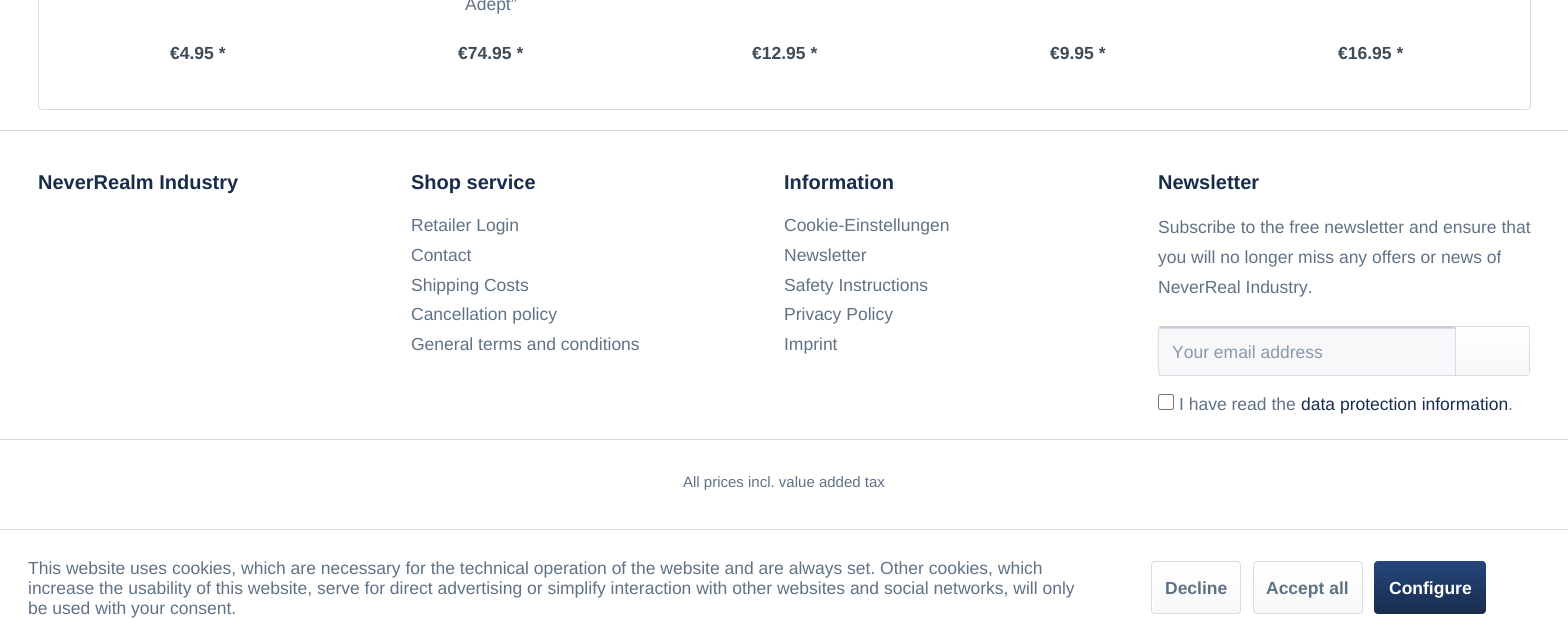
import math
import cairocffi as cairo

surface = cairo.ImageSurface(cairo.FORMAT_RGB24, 1568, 644)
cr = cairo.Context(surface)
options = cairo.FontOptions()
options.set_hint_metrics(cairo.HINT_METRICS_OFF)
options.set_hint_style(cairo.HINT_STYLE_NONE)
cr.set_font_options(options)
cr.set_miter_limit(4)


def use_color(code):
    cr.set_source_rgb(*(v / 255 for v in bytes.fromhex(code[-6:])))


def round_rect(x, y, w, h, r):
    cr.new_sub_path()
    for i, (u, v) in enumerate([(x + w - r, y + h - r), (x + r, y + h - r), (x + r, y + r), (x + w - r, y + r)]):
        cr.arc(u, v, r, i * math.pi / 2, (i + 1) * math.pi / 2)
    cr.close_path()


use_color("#ffffff")
cr.paint()
round_rect(38.5, -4.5, 1492, 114, 3.5)
use_color("#dadae5")
cr.set_line_width(1)
cr.stroke()
cr.select_font_face("Liberation Sans", cairo.FONT_SLANT_NORMAL, cairo.FONT_WEIGHT_BOLD)
cr.set_font_size(17.5)
use_color("#3f4c58")
cr.move_to(170, 59)
cr.show_text("€4.95 *")
cr.select_font_face("Liberation Sans")
use_color("#5f7285")
cr.move_to(465, 10)
cr.show_text("Adept”")
cr.select_font_face("Liberation Sans", cairo.FONT_SLANT_NORMAL, cairo.FONT_WEIGHT_BOLD)
use_color("#3f4c58")
cr.move_to(458, 59)
cr.show_text("€74.95 *")
cr.move_to(752, 59)
cr.show_text("€12.95 *")
cr.move_to(1050, 59)
cr.show_text("€9.95 *")
cr.move_to(1338, 59)
cr.show_text("€16.95 *")
use_color("#dadae5")
cr.rectangle(0, 130, 1568, 1)
cr.fill()
cr.rectangle(0, 439, 1568, 1)
cr.fill()
cr.set_font_size(20)
use_color("#192c4c")
cr.move_to(38, 189)
cr.show_text("NeverRealm Industry")
cr.move_to(411, 189)
cr.show_text("Shop service")
cr.select_font_face("Liberation Sans")
cr.set_font_size(17.5)
use_color("#5f7285")
cr.move_to(411, 231)
cr.show_text("Retailer Login")
cr.move_to(411, 261)
cr.show_text("Contact")
cr.move_to(411, 291)
cr.show_text("Shipping Costs")
cr.move_to(411, 320)
cr.show_text("Cancellation policy")
cr.move_to(411, 350)
cr.show_text("General terms and conditions")
cr.select_font_face("Liberation Sans", cairo.FONT_SLANT_NORMAL, cairo.FONT_WEIGHT_BOLD)
cr.set_font_size(20)
use_color("#192c4c")
cr.move_to(784, 189)
cr.show_text("Information")
cr.select_font_face("Liberation Sans")
cr.set_font_size(17.5)
use_color("#5f7285")
cr.move_to(784, 231)
cr.show_text("Cookie-Einstellungen")
cr.move_to(784, 261)
cr.show_text("Newsletter")
cr.move_to(784, 291)
cr.show_text("Safety Instructions")
cr.move_to(784, 320)
cr.show_text("Privacy Policy")
cr.move_to(784, 350)
cr.show_text("Imprint")
cr.select_font_face("Liberation Sans", cairo.FONT_SLANT_NORMAL, cairo.FONT_WEIGHT_BOLD)
cr.set_font_size(20)
use_color("#192c4c")
cr.move_to(1158, 189)
cr.show_text("Newsletter")
cr.select_font_face("Liberation Sans")
cr.set_font_size(17.5)
use_color("#5f7285")
cr.move_to(1158, 233)
cr.show_text("Subscribe to the free newsletter and ensure that")
cr.move_to(1158, 263)
cr.show_text("you will no longer miss any offers or news of")
cr.move_to(1158, 293)
cr.show_text("NeverReal Industry.")
use_color("#f8f8fa")
cr.new_path()
cr.move_to(1161.5, 328)
cr.line_to(1455, 328)
cr.line_to(1455, 375)
cr.line_to(1161.5, 375)
cr.curve_to(1160, 375, 1159, 374, 1159, 372.5)
cr.line_to(1159, 330.5)
cr.curve_to(1159, 329, 1160, 328, 1161.5, 328)
cr.close_path()
cr.fill()
use_color("#dadae5")
cr.new_path()
cr.move_to(1161, 329)
cr.line_to(1455, 329)
cr.line_to(1455, 328)
cr.line_to(1162, 328)
cr.curve_to(1160, 328, 1159, 329, 1159, 331)
cr.curve_to(1159, 330, 1160, 329, 1161, 329)
cr.close_path()
cr.fill()
use_color("#cbcbdb")
cr.new_path()
cr.move_to(1161, 328)
cr.line_to(1160, 329)
cr.line_to(1159, 327)
cr.line_to(1160, 326)
cr.line_to(1456, 326)
cr.line_to(1454, 328)
cr.close_path()
cr.fill()
use_color("#dadae5")
cr.new_path()
cr.move_to(1456, 326)
cr.line_to(1456, 376)
cr.line_to(1455, 375)
cr.line_to(1455, 328)
cr.line_to(1454, 328)
cr.close_path()
cr.fill()
cr.new_path()
cr.move_to(1456, 376)
cr.line_to(1455, 375)
cr.line_to(1161, 375)
cr.line_to(1160, 374)
cr.line_to(1159, 375)
cr.line_to(1160, 376)
cr.close_path()
cr.fill()
cr.new_path()
cr.move_to(1159, 375)
cr.curve_to(1157, 373, 1157, 330, 1159, 327)
cr.line_to(1160, 329)
cr.line_to(1159, 330)
cr.curve_to(1159, 333, 1158, 373, 1160, 374)
cr.close_path()
cr.fill()
use_color("#8798a9")
cr.move_to(1172, 358)
cr.show_text("Your email address")
gradient = cairo.LinearGradient(1493, 328, 1493, 375)
gradient.add_color_stop_rgba(0, 1, 1, 1, 1)
gradient.add_color_stop_rgba(1, 0.973, 0.973, 0.98, 1)
cr.set_source(gradient)
cr.new_path()
cr.move_to(1456, 328)
cr.line_to(1526.5, 328)
cr.curve_to(1528, 328, 1529, 329, 1529, 330.5)
cr.line_to(1529, 372.5)
cr.curve_to(1529, 374, 1528, 375, 1526.5, 375)
cr.line_to(1456, 375)
cr.close_path()
cr.fill()
cr.new_path()
cr.move_to(1455.5, 326.5)
cr.line_to(1526, 326.5)
cr.curve_to(1528, 326.5, 1529.5, 328, 1529.5, 330)
cr.line_to(1529.5, 372)
cr.curve_to(1529.5, 374, 1528, 375.5, 1526, 375.5)
cr.line_to(1455.5, 375.5)
cr.close_path()
use_color("#dadae5")
cr.stroke()
round_rect(1158.5, 394.5, 15, 15, 2)
use_color("#767676")
cr.stroke()
use_color("#5f7285")
cr.move_to(1179, 410)
cr.show_text("I have read the")
use_color("#192c4c")
cr.move_to(1301, 410)
cr.show_text("data protection information")
use_color("#5f7285")
cr.move_to(1508, 410)
cr.show_text(".")
cr.set_font_size(15)
cr.move_to(683, 487)
cr.show_text("All prices incl. value added tax")
use_color("#dadae5")
cr.rectangle(0, 529, 1568, 1)
cr.fill()
cr.set_font_size(17.5)
use_color("#5f7285")
cr.move_to(28, 574)
cr.show_text("This website uses cookies, which are necessary for the technical operation of the website and are always set. Other cookies, which")
cr.move_to(28, 594)
cr.show_text("increase the usability of this website, serve for direct advertising or simplify interaction with other websites and social networks, will only")
cr.move_to(28, 614)
cr.show_text("be used with your consent.")
gradient = cairo.LinearGradient(1196, 563, 1196, 613)
gradient.add_color_stop_rgba(0, 1, 1, 1, 1)
gradient.add_color_stop_rgba(1, 0.973, 0.973, 0.98, 1)
cr.set_source(gradient)
round_rect(1153, 563, 87, 50, 2.5)
cr.fill()
round_rect(1151.5, 561.5, 89, 52, 3.5)
use_color("#dadae5")
cr.stroke()
cr.select_font_face("Liberation Sans", cairo.FONT_SLANT_NORMAL, cairo.FONT_WEIGHT_BOLD)
use_color("#5f7285")
cr.move_to(1165, 594)
cr.show_text("Decline")
gradient = cairo.LinearGradient(1308, 563, 1308, 613)
gradient.add_color_stop_rgba(0, 1, 1, 1, 1)
gradient.add_color_stop_rgba(1, 0.973, 0.973, 0.98, 1)
cr.set_source(gradient)
round_rect(1254, 563, 107, 50, 2.5)
cr.fill()
round_rect(1253.5, 561.5, 109, 52, 3.5)
use_color("#dadae5")
cr.stroke()
use_color("#5f7285")
cr.move_to(1266, 594)
cr.show_text("Accept all")
gradient = cairo.LinearGradient(1430, 561, 1430, 614)
gradient.add_color_stop_rgba(0, 0.141, 0.275, 0.494, 1)
gradient.add_color_stop_rgba(1, 0.098, 0.173, 0.298, 1)
cr.set_source(gradient)
round_rect(1374, 561, 112, 53, 4)
cr.fill()
use_color("#ffffff")
cr.move_to(1389, 594)
cr.show_text("Configure")
surface.write_to_png("result.png")
